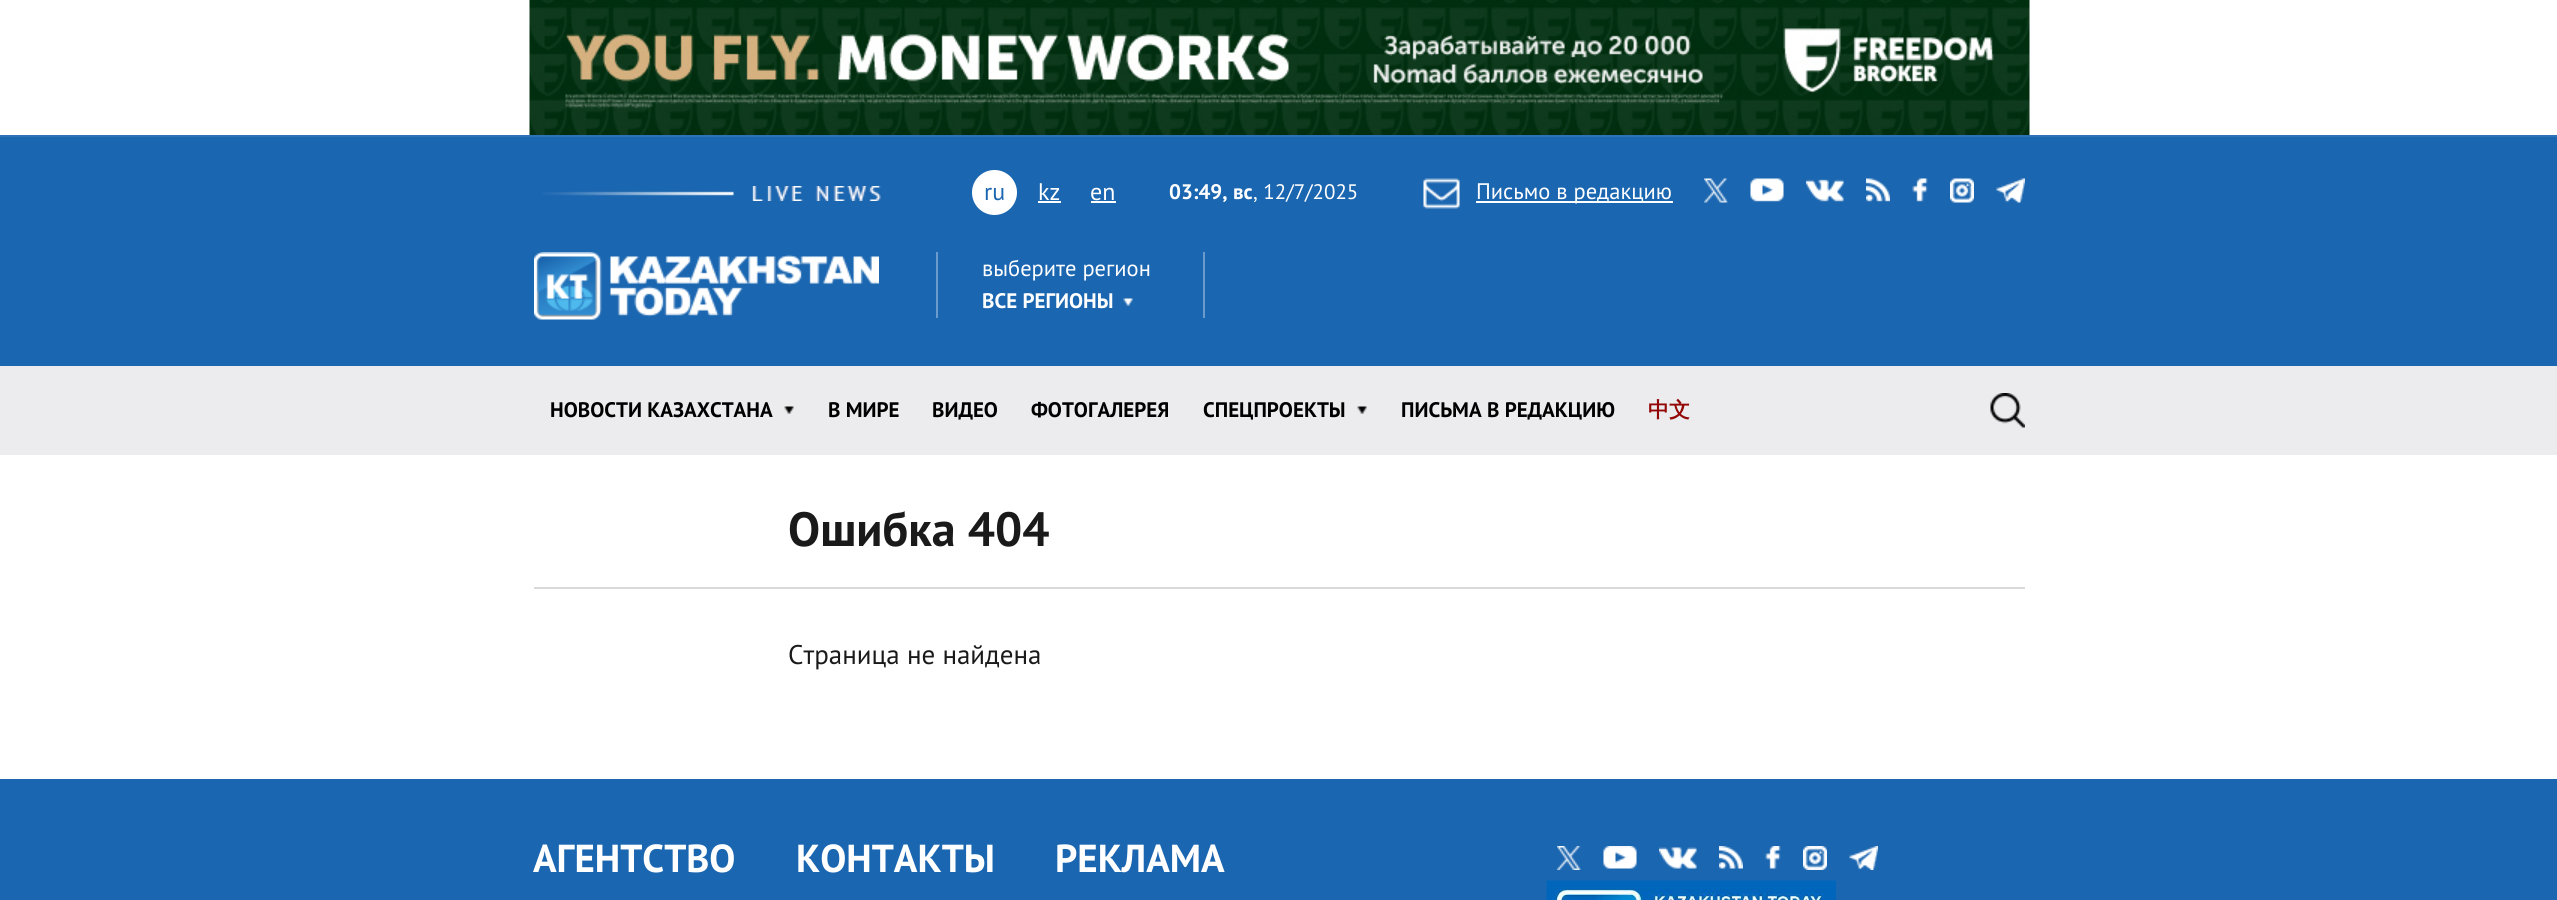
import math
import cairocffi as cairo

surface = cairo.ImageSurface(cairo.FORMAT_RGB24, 2557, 900)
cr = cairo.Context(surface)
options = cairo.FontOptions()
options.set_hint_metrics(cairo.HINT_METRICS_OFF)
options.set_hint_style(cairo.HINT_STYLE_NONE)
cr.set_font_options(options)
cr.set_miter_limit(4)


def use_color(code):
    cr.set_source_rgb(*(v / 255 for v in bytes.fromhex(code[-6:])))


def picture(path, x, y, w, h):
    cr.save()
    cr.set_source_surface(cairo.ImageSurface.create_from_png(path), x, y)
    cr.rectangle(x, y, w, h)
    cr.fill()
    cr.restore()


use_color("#ffffff")
cr.paint()
picture("img1.png", 529, 0, 1501, 135)
use_color("#1b66b0")
cr.rectangle(0, 137, 2557, 229)
cr.fill()
use_color("#2d72b6")
cr.rectangle(0, 135, 2557, 2)
cr.fill()
picture("img2.png", 542, 186, 339, 15)
use_color("#ffffff")
cr.arc(994.5, 192.5, 22.5, 0, 2 * math.pi)
cr.fill()
cr.select_font_face("PT Sans")
cr.set_font_size(24)
use_color("#1b66b0")
cr.move_to(984, 200)
cr.show_text("ru")
use_color("#ffffff")
cr.move_to(1038, 200)
cr.show_text("kz")
cr.rectangle(1038, 201, 23, 2)
cr.fill()
cr.move_to(1090, 200)
cr.show_text("en")
cr.rectangle(1091, 201, 25, 2)
cr.fill()
cr.select_font_face("PT Sans", cairo.FONT_SLANT_NORMAL, cairo.FONT_WEIGHT_BOLD)
cr.set_font_size(21)
cr.move_to(1169, 199)
cr.show_text("03:49, вс")
cr.select_font_face("PT Sans")
cr.move_to(1253, 199)
cr.show_text(", 12/7/2025")
picture("img3.png", 1423, 178, 37, 31)
cr.rectangle(1476, 201, 197, 2)
cr.fill()
cr.set_font_size(22.5)
cr.move_to(1476, 199)
cr.show_text("Письмо в редакцию")
picture("img4.png", 1704, 178, 24, 25)
picture("img5.png", 1750, 178, 34, 24)
picture("img6.png", 1806, 179, 38, 23)
picture("img7.png", 1866, 178, 24, 24)
picture("img8.png", 1912, 178, 16, 24)
picture("img9.png", 1950, 178, 24, 25)
picture("img10.png", 1996, 178, 29, 25)
picture("img11.png", 534, 252, 345, 68)
use_color("#6b9bcc")
cr.rectangle(1203, 252, 2, 66)
cr.fill()
cr.rectangle(936, 252, 2, 66)
cr.fill()
use_color("#ffffff")
cr.move_to(982, 276)
cr.show_text("выберите регион")
picture("img12.png", 1123, 298, 10, 8)
cr.select_font_face("PT Sans", cairo.FONT_SLANT_NORMAL, cairo.FONT_WEIGHT_BOLD)
cr.set_font_size(21)
cr.move_to(982, 308)
cr.show_text("ВСЕ РЕГИОНЫ")
use_color("#ecebed")
cr.rectangle(0, 366, 2557, 89)
cr.fill()
use_color("#000000")
cr.move_to(550, 417)
cr.show_text("НОВОСТИ КАЗАХСТАНА")
picture("img13.png", 784, 406, 10, 8)
cr.move_to(828, 417)
cr.show_text("В МИРЕ")
cr.move_to(932, 417)
cr.show_text("ВИДЕО")
cr.move_to(1031, 417)
cr.show_text("ФОТОГАЛЕРЕЯ")
cr.move_to(1203, 417)
cr.show_text("СПЕЦПРОЕКТЫ")
picture("img14.png", 1357, 406, 10, 8)
cr.move_to(1401, 417)
cr.show_text("ПИСЬМА В РЕДАКЦИЮ")
cr.select_font_face("WenQuanYi Zen Hei", cairo.FONT_SLANT_NORMAL, cairo.FONT_WEIGHT_BOLD)
use_color("#930606")
cr.move_to(1648, 417)
cr.show_text("中文")
picture("img15.png", 1990, 393, 35, 35)
use_color("#d9d9d9")
cr.rectangle(534, 587, 1491, 2)
cr.fill()
cr.select_font_face("PT Sans", cairo.FONT_SLANT_NORMAL, cairo.FONT_WEIGHT_BOLD)
cr.set_font_size(48)
use_color("#1a1a1a")
cr.move_to(788, 546)
cr.show_text("Ошибка 404")
cr.select_font_face("PT Sans")
cr.set_font_size(27)
cr.move_to(788, 664)
cr.show_text("Страница не найдена")
use_color("#1b66b0")
cr.rectangle(0, 779, 2557, 121)
cr.fill()
cr.select_font_face("PT Sans", cairo.FONT_SLANT_NORMAL, cairo.FONT_WEIGHT_BOLD)
cr.set_font_size(39)
use_color("#ffffff")
cr.move_to(533, 872)
cr.show_text("АГЕНТСТВО")
cr.move_to(796, 872)
cr.show_text("КОНТАКТЫ")
cr.move_to(1055, 872)
cr.show_text("РЕКЛАМА")
picture("img16.png", 1557, 846, 24, 24)
picture("img17.png", 1603, 846, 34, 23)
picture("img18.png", 1659, 847, 38, 22)
picture("img19.png", 1719, 846, 24, 23)
picture("img20.png", 1765, 846, 16, 23)
picture("img21.png", 1803, 846, 24, 24)
picture("img22.png", 1849, 846, 29, 24)
picture("img23.png", 1546, 880, 290, 20)
surface.write_to_png("result.png")
